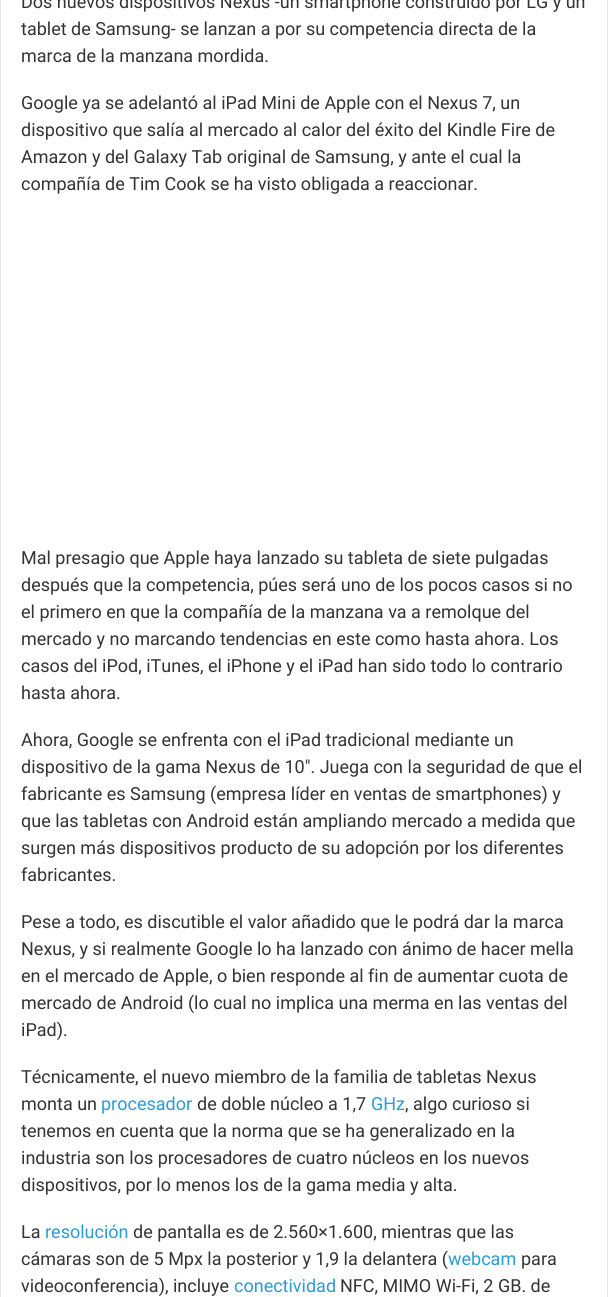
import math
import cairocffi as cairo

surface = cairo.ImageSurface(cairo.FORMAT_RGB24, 608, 1297)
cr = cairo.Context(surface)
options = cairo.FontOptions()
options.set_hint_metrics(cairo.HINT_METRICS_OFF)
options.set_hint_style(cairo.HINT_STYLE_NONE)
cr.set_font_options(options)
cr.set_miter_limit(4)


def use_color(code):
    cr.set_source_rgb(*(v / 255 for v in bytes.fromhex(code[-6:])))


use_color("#ffffff")
cr.paint()
cr.rectangle(0.5, -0.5, 607, 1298)
use_color("#e6e6e6")
cr.set_line_width(1)
cr.stroke()
cr.select_font_face("Roboto")
cr.set_font_size(18)
use_color("#333333")
cr.move_to(21, 8)
cr.show_text("Dos nuevos dispositivos Nexus -un smartphone construido por LG y un")
cr.move_to(21, 35)
cr.show_text("tablet de Samsung- se lanzan a por su competencia directa de la")
cr.move_to(21, 62)
cr.show_text("marca de la manzana mordida.")
cr.move_to(21, 109)
cr.show_text("Google ya se adelantó al iPad Mini de Apple con el Nexus 7, un")
cr.move_to(21, 136)
cr.show_text("dispositivo que salía al mercado al calor del éxito del Kindle Fire de")
cr.move_to(21, 163)
cr.show_text("Amazon y del Galaxy Tab original de Samsung, y ante el cual la")
cr.move_to(21, 190)
cr.show_text("compañía de Tim Cook se ha visto obligada a reaccionar.")
cr.move_to(21, 564)
cr.show_text("Mal presagio que Apple haya lanzado su tableta de siete pulgadas")
cr.move_to(21, 591)
cr.show_text("después que la competencia, púes será uno de los pocos casos si no")
cr.move_to(21, 618)
cr.show_text("el primero en que la compañía de la manzana va a remolque del")
cr.move_to(21, 645)
cr.show_text("mercado y no marcando tendencias en este como hasta ahora. Los")
cr.move_to(21, 672)
cr.show_text("casos del iPod, iTunes, el iPhone y el iPad han sido todo lo contrario")
cr.move_to(21, 699)
cr.show_text("hasta ahora.")
cr.move_to(21, 746)
cr.show_text("Ahora, Google se enfrenta con el iPad tradicional mediante un")
cr.move_to(21, 773)
cr.show_text("dispositivo de la gama Nexus de 10\". Juega con la seguridad de que el")
cr.move_to(21, 800)
cr.show_text("fabricante es Samsung (empresa líder en ventas de smartphones) y")
cr.move_to(21, 827)
cr.show_text("que las tabletas con Android están ampliando mercado a medida que")
cr.move_to(21, 854)
cr.show_text("surgen más dispositivos producto de su adopción por los diferentes")
cr.move_to(21, 881)
cr.show_text("fabricantes.")
cr.move_to(21, 928)
cr.show_text("Pese a todo, es discutible el valor añadido que le podrá dar la marca")
cr.move_to(21, 955)
cr.show_text("Nexus, y si realmente Google lo ha lanzado con ánimo de hacer mella")
cr.move_to(21, 982)
cr.show_text("en el mercado de Apple, o bien responde al fin de aumentar cuota de")
cr.move_to(21, 1009)
cr.show_text("mercado de Android (lo cual no implica una merma en las ventas del")
cr.move_to(21, 1036)
cr.show_text("iPad).")
cr.move_to(21, 1083)
cr.show_text("Técnicamente, el nuevo miembro de la familia de tabletas Nexus")
cr.move_to(21, 1110)
cr.show_text("monta un")
use_color("#299cd6")
cr.move_to(101, 1110)
cr.show_text("procesador")
use_color("#333333")
cr.move_to(197, 1110)
cr.show_text("de doble núcleo a 1,7")
use_color("#299cd6")
cr.move_to(371, 1110)
cr.show_text("GHz")
use_color("#333333")
cr.move_to(405, 1110)
cr.show_text(", algo curioso si")
cr.move_to(21, 1137)
cr.show_text("tenemos en cuenta que la norma que se ha generalizado en la")
cr.move_to(21, 1164)
cr.show_text("industria son los procesadores de cuatro núcleos en los nuevos")
cr.move_to(21, 1191)
cr.show_text("dispositivos, por lo menos los de la gama media y alta.")
cr.move_to(21, 1238)
cr.show_text("La")
use_color("#299cd6")
cr.move_to(45, 1238)
cr.show_text("resolución")
use_color("#333333")
cr.move_to(133, 1238)
cr.show_text("de pantalla es de 2.560×1.600, mientras que las")
cr.move_to(21, 1265)
cr.show_text("cámaras son de 5 Mpx la posterior y 1,9 la delantera (")
use_color("#299cd6")
cr.move_to(448, 1265)
cr.show_text("webcam")
use_color("#333333")
cr.move_to(521, 1265)
cr.show_text("para")
cr.move_to(21, 1292)
cr.show_text("videoconferencia), incluye")
use_color("#299cd6")
cr.move_to(234, 1292)
cr.show_text("conectividad")
use_color("#333333")
cr.move_to(340, 1292)
cr.show_text("NFC, MIMO Wi-Fi, 2 GB. de")
surface.write_to_png("result.png")
